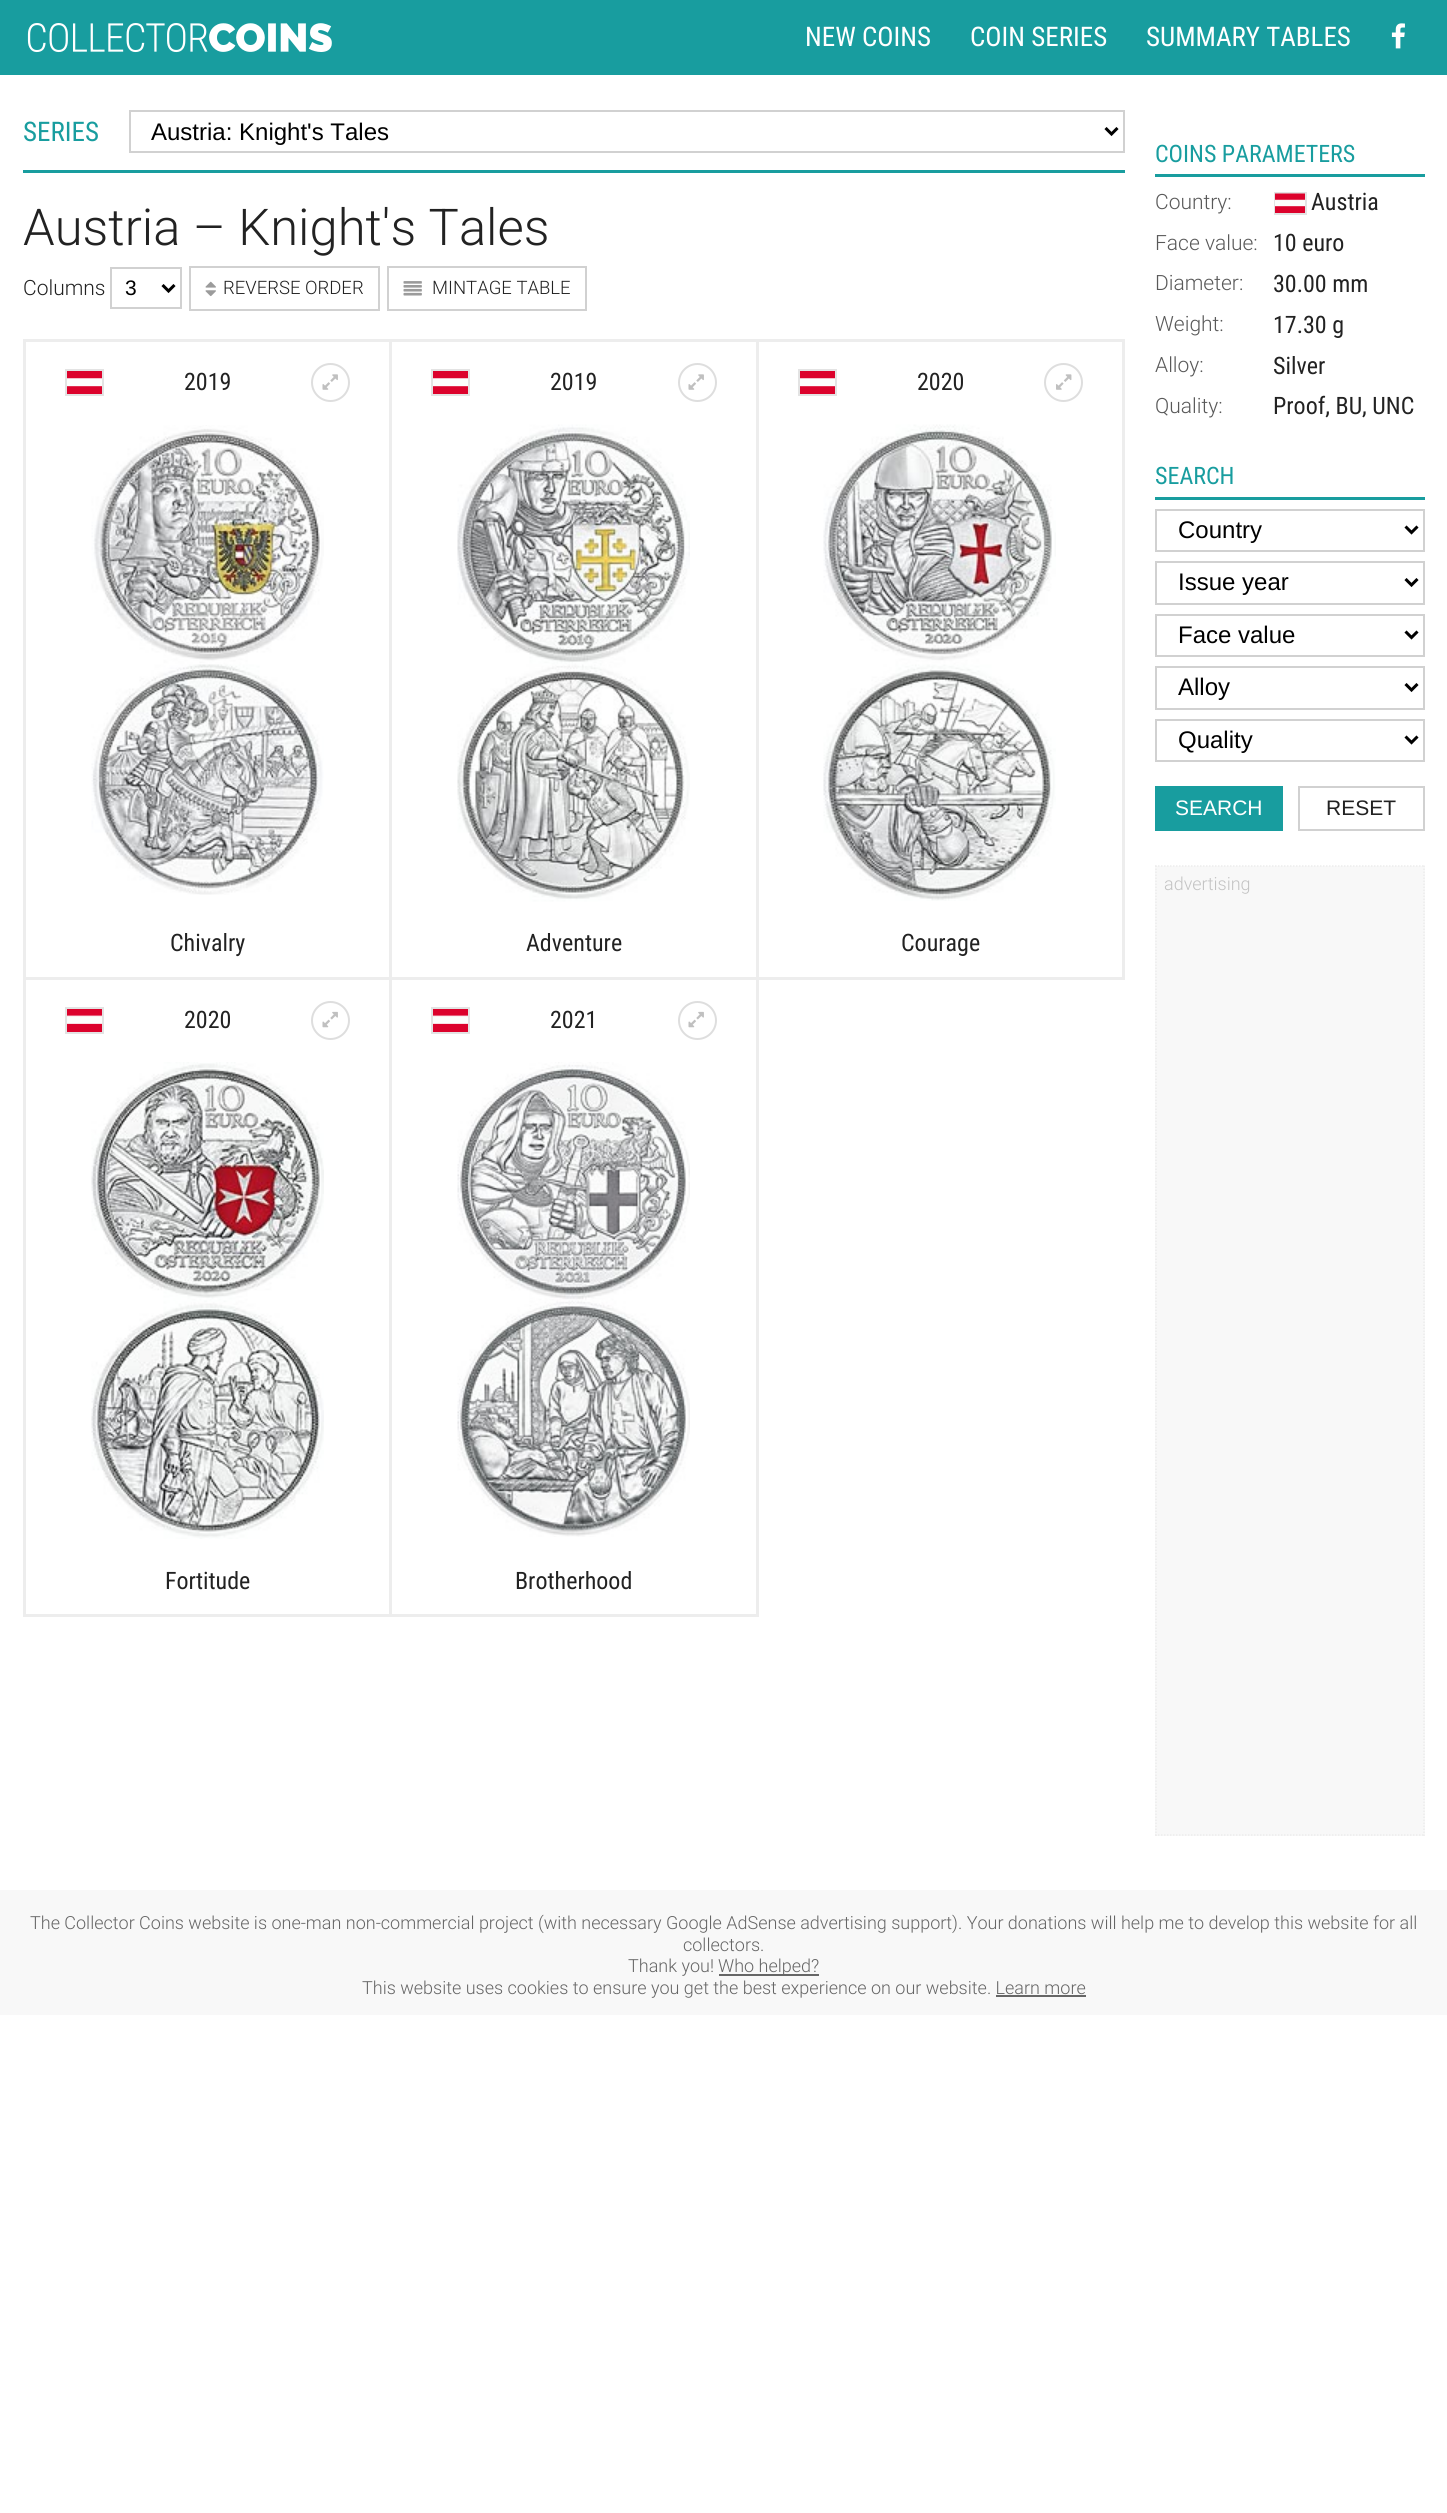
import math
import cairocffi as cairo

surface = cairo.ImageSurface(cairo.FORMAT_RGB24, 1447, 2513)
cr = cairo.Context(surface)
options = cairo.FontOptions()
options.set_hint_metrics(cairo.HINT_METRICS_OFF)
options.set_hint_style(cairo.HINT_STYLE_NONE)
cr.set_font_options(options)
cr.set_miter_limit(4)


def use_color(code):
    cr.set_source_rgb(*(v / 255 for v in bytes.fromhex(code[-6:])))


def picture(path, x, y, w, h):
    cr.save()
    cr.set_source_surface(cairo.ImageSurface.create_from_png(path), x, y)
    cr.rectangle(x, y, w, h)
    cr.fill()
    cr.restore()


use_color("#ffffff")
cr.paint()
use_color("#189d9f")
cr.rectangle(0, 0, 1447, 75)
cr.fill()
picture("img1.png", 27, 23, 305, 30)
cr.select_font_face("Roboto Condensed")
cr.set_font_size(27)
use_color("#ffffff")
cr.move_to(805, 46)
cr.show_text("NEW COINS")
cr.move_to(970, 46)
cr.show_text("COIN SERIES")
cr.move_to(1146, 46)
cr.show_text("SUMMARY TABLES")
picture("img2.png", 1391, 23, 14, 26)
use_color("#189d9f")
cr.rectangle(23, 170, 1102, 3)
cr.fill()
cr.move_to(23, 141)
cr.show_text("SERIES")
cr.rectangle(130, 111, 994, 41)
use_color("#d1d1d1")
cr.stroke()
cr.new_path()
cr.move_to(1105.5, 128)
cr.line_to(1111.5, 134)
cr.line_to(1117.5, 128)
use_color("#000000")
cr.set_line_width(3)
cr.stroke()
cr.select_font_face("Liberation Sans")
cr.set_font_size(24)
cr.move_to(151, 140)
cr.show_text("Austria: Knight's Tales")
cr.select_font_face("Roboto Light")
cr.set_font_size(50.75)
use_color("#222222")
cr.move_to(23, 245)
cr.show_text("Austria – Knight's Tales")
cr.set_font_size(21)
cr.move_to(23, 295)
cr.show_text("Columns")
cr.rectangle(111, 268, 70, 40)
use_color("#d1d1d1")
cr.set_line_width(2)
cr.stroke()
cr.new_path()
cr.move_to(162.5, 285)
cr.line_to(168.5, 291)
cr.line_to(174.5, 285)
use_color("#000000")
cr.set_line_width(3)
cr.stroke()
cr.select_font_face("Liberation Sans")
cr.move_to(125, 295)
cr.show_text("3")
cr.rectangle(190, 267, 189, 43)
use_color("#d1d1d1")
cr.set_line_width(2)
cr.stroke()
picture("img3.png", 205, 281, 11, 16)
cr.select_font_face("Roboto Light")
cr.set_font_size(18.5)
use_color("#222222")
cr.move_to(223, 294)
cr.show_text("REVERSE ORDER")
cr.rectangle(388, 267, 198, 43)
use_color("#d1d1d1")
cr.stroke()
picture("img4.png", 403, 281, 19, 15)
use_color("#222222")
cr.move_to(432, 294)
cr.show_text("MINTAGE TABLE")
use_color("#ededed")
cr.rectangle(756, 339, 369, 3)
cr.fill()
cr.rectangle(1122, 339, 3, 641)
cr.fill()
cr.rectangle(389, 977, 370, 3)
cr.fill()
cr.rectangle(756, 977, 3, 640)
cr.fill()
cr.rectangle(756, 977, 369, 3)
cr.fill()
cr.rectangle(756, 339, 3, 641)
cr.fill()
cr.rectangle(389, 339, 370, 3)
cr.fill()
cr.rectangle(389, 1614, 370, 3)
cr.fill()
cr.rectangle(389, 977, 3, 640)
cr.fill()
cr.rectangle(23, 977, 369, 3)
cr.fill()
cr.rectangle(389, 339, 3, 641)
cr.fill()
cr.rectangle(23, 339, 369, 3)
cr.fill()
cr.rectangle(23, 1614, 369, 3)
cr.fill()
cr.rectangle(23, 977, 3, 640)
cr.fill()
cr.rectangle(23, 339, 3, 641)
cr.fill()
picture("img5.png", 67, 371, 35, 23)
cr.rectangle(66, 370, 37, 25)
use_color("#e3e3e3")
cr.stroke()
cr.select_font_face("Roboto Condensed")
cr.set_font_size(24)
use_color("#222222")
cr.move_to(184, 390)
cr.show_text("2019")
cr.new_path()
cr.arc(330.5, 382.5, 18.5, 0, 2 * math.pi)
use_color("#dedede")
cr.stroke()
picture("img6.png", 322, 374, 16, 16)
picture("img7.png", 91, 425, 233, 470)
use_color("#222222")
cr.move_to(170, 951)
cr.show_text("Chivalry")
picture("img5.png", 433, 371, 35, 23)
cr.rectangle(432, 370, 37, 25)
use_color("#e3e3e3")
cr.stroke()
use_color("#222222")
cr.move_to(550, 390)
cr.show_text("2019")
cr.new_path()
cr.arc(697.5, 382.5, 18.5, 0, 2 * math.pi)
use_color("#dedede")
cr.stroke()
picture("img6.png", 688, 374, 16, 16)
picture("img8.png", 457, 424, 233, 478)
use_color("#222222")
cr.move_to(526, 951)
cr.show_text("Adventure")
picture("img5.png", 800, 371, 35, 23)
cr.rectangle(799, 370, 37, 25)
use_color("#e3e3e3")
cr.stroke()
use_color("#222222")
cr.move_to(917, 390)
cr.show_text("2020")
cr.new_path()
cr.arc(1063.5, 382.5, 18.5, 0, 2 * math.pi)
use_color("#dedede")
cr.stroke()
picture("img9.png", 1056, 374, 16, 16)
picture("img10.png", 823, 424, 233, 477)
use_color("#222222")
cr.move_to(901, 951)
cr.show_text("Courage")
picture("img11.png", 67, 1009, 35, 23)
cr.rectangle(66, 1008, 37, 25)
use_color("#e3e3e3")
cr.stroke()
use_color("#222222")
cr.move_to(184, 1028)
cr.show_text("2020")
cr.new_path()
cr.arc(330.5, 1020.5, 18.5, 0, 2 * math.pi)
use_color("#dedede")
cr.stroke()
picture("img12.png", 322, 1011, 16, 17)
picture("img13.png", 91, 1062, 233, 477)
use_color("#222222")
cr.move_to(165, 1589)
cr.show_text("Fortitude")
picture("img11.png", 433, 1009, 35, 23)
cr.rectangle(432, 1008, 37, 25)
use_color("#e3e3e3")
cr.stroke()
use_color("#222222")
cr.move_to(550, 1028)
cr.show_text("2021")
cr.new_path()
cr.arc(697.5, 1020.5, 18.5, 0, 2 * math.pi)
use_color("#dedede")
cr.stroke()
picture("img12.png", 688, 1011, 16, 17)
picture("img14.png", 457, 1062, 233, 475)
use_color("#222222")
cr.move_to(515, 1589)
cr.show_text("Brotherhood")
use_color("#189d9f")
cr.rectangle(1155, 174, 270, 3)
cr.fill()
cr.move_to(1155, 162)
cr.show_text("COINS PARAMETERS")
cr.select_font_face("Roboto Light")
cr.set_font_size(21)
use_color("#595959")
cr.move_to(1155, 209)
cr.show_text("Country:")
cr.rectangle(1275, 193, 31, 21)
use_color("#e3e3e3")
cr.stroke()
picture("img15.png", 1275, 193, 30, 20)
cr.select_font_face("Roboto Condensed")
cr.set_font_size(24)
use_color("#222222")
cr.move_to(1311, 210)
cr.show_text("Austria")
cr.select_font_face("Roboto Light")
cr.set_font_size(21)
use_color("#595959")
cr.move_to(1155, 250)
cr.show_text("Face value:")
cr.select_font_face("Roboto Condensed")
cr.set_font_size(24)
use_color("#222222")
cr.move_to(1273, 251)
cr.show_text("10 euro")
cr.select_font_face("Roboto Light")
cr.set_font_size(21)
use_color("#595959")
cr.move_to(1155, 290)
cr.show_text("Diameter:")
cr.select_font_face("Roboto Condensed")
cr.set_font_size(24)
use_color("#222222")
cr.move_to(1273, 292)
cr.show_text("30.00 mm")
cr.select_font_face("Roboto Light")
cr.set_font_size(21)
use_color("#595959")
cr.move_to(1155, 331)
cr.show_text("Weight:")
cr.select_font_face("Roboto Condensed")
cr.set_font_size(24)
use_color("#222222")
cr.move_to(1273, 333)
cr.show_text("17.30 g")
cr.select_font_face("Roboto Light")
cr.set_font_size(21)
use_color("#595959")
cr.move_to(1155, 372)
cr.show_text("Alloy:")
cr.select_font_face("Roboto Condensed")
cr.set_font_size(24)
use_color("#222222")
cr.move_to(1273, 374)
cr.show_text("Silver")
cr.select_font_face("Roboto Light")
cr.set_font_size(21)
use_color("#595959")
cr.move_to(1155, 413)
cr.show_text("Quality:")
cr.select_font_face("Roboto Condensed")
cr.set_font_size(24)
use_color("#222222")
cr.move_to(1273, 414)
cr.show_text("Proof, BU, UNC")
use_color("#189d9f")
cr.rectangle(1155, 497, 270, 3)
cr.fill()
cr.move_to(1155, 484)
cr.show_text("SEARCH")
cr.rectangle(1156, 510, 268, 41)
use_color("#d1d1d1")
cr.stroke()
cr.new_path()
cr.move_to(1405.5, 526.5)
cr.line_to(1411.5, 532.5)
cr.line_to(1417.5, 526.5)
use_color("#000000")
cr.set_line_width(3)
cr.stroke()
cr.select_font_face("Liberation Sans")
cr.move_to(1178, 538)
cr.show_text("Country")
cr.rectangle(1156, 562, 268, 42)
use_color("#d1d1d1")
cr.set_line_width(2)
cr.stroke()
cr.new_path()
cr.move_to(1405.5, 579)
cr.line_to(1411.5, 585)
cr.line_to(1417.5, 579)
use_color("#000000")
cr.set_line_width(3)
cr.stroke()
cr.move_to(1178, 590)
cr.show_text("Issue year")
cr.rectangle(1156, 615, 268, 41)
use_color("#d1d1d1")
cr.set_line_width(2)
cr.stroke()
cr.new_path()
cr.move_to(1405.5, 631.5)
cr.line_to(1411.5, 637.5)
cr.line_to(1417.5, 631.5)
use_color("#000000")
cr.set_line_width(3)
cr.stroke()
cr.move_to(1178, 643)
cr.show_text("Face value")
cr.rectangle(1156, 667, 268, 42)
use_color("#d1d1d1")
cr.set_line_width(2)
cr.stroke()
cr.new_path()
cr.move_to(1405.5, 684)
cr.line_to(1411.5, 690)
cr.line_to(1417.5, 684)
use_color("#000000")
cr.set_line_width(3)
cr.stroke()
cr.move_to(1178, 695)
cr.show_text("Alloy")
cr.rectangle(1156, 720, 268, 41)
use_color("#d1d1d1")
cr.set_line_width(2)
cr.stroke()
cr.new_path()
cr.move_to(1405.5, 736.5)
cr.line_to(1411.5, 742.5)
cr.line_to(1417.5, 736.5)
use_color("#000000")
cr.set_line_width(3)
cr.stroke()
cr.move_to(1178, 748)
cr.show_text("Quality")
use_color("#189d9f")
cr.rectangle(1155, 786, 128, 45)
cr.fill()
cr.set_font_size(21)
use_color("#ffffff")
cr.move_to(1175, 815)
cr.show_text("SEARCH")
cr.rectangle(1299, 787, 125, 43)
use_color("#d1d1d1")
cr.set_line_width(2)
cr.stroke()
use_color("#222222")
cr.move_to(1326, 815)
cr.show_text("RESET")
use_color("#f8f8f8")
cr.rectangle(1155, 866, 270, 970)
cr.fill()
cr.new_path()
cr.move_to(1155, 866)
cr.line_to(1425, 866)
use_color("#ededed")
cr.set_line_width(1.5)
cr.set_dash([1.5, 1.5])
cr.stroke()
cr.new_path()
cr.move_to(1424, 865.5)
cr.line_to(1424, 1836)
cr.stroke()
cr.new_path()
cr.move_to(1155, 1835)
cr.line_to(1425, 1835)
cr.stroke()
cr.new_path()
cr.move_to(1156, 865.5)
cr.line_to(1156, 1836)
cr.stroke()
cr.select_font_face("Roboto Light")
cr.set_font_size(18)
use_color("#c3c3c3")
cr.move_to(1164, 890)
cr.show_text("advertising")
use_color("#f8f8f8")
cr.rectangle(0, 1890, 1447, 125)
cr.fill()
use_color("#666666")
cr.move_to(30, 1929)
cr.show_text("The Collector Coins website is one-man non-commercial project (with necessary Google AdSense advertising support). Your donations will help me to develop this website for all")
cr.move_to(683, 1951)
cr.show_text("collectors.")
cr.move_to(628, 1972)
cr.show_text("Thank you!")
cr.rectangle(719, 1974, 100, 2)
cr.fill()
cr.move_to(718, 1972)
cr.show_text("Who helped?")
cr.move_to(362, 1994)
cr.show_text("This website uses cookies to ensure you get the best experience on our website. Learn more")
cr.rectangle(996, 1995, 90, 2)
cr.fill()
surface.write_to_png("result.png")
